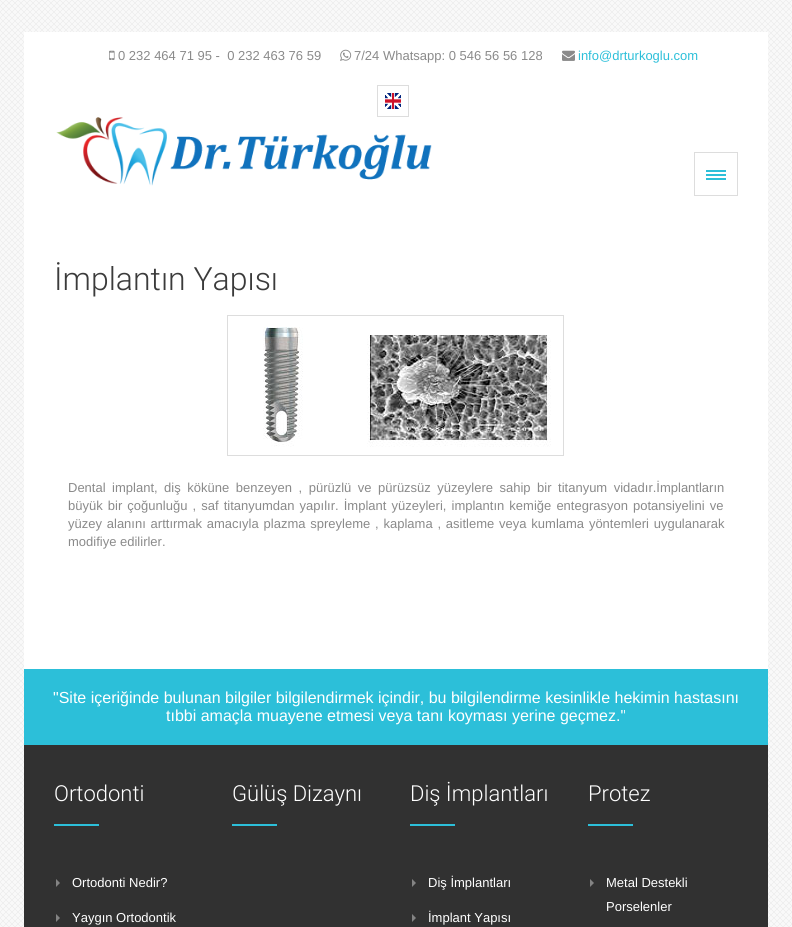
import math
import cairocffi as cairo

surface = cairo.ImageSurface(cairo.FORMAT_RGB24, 792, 927)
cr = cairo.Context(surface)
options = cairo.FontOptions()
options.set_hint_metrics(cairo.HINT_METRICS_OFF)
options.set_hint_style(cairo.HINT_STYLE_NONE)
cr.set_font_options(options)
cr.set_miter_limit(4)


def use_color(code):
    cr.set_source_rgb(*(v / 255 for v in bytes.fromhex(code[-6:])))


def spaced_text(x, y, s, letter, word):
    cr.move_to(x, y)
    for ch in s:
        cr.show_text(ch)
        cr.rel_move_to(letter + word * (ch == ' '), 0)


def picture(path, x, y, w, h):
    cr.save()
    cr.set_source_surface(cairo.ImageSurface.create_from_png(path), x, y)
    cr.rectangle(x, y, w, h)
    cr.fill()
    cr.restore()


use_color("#ffffff")
cr.paint()
picture("img1.png", 0, 0, 792, 927)
use_color("#ffffff")
cr.rectangle(24, 32, 744, 637)
cr.fill()
picture("img2.png", 109, 50, 6, 10)
cr.select_font_face("Liberation Sans")
cr.set_font_size(13)
use_color("#8a8a8a")
cr.move_to(118, 60)
cr.show_text("0 232 464 71 95 -  0 232 463 76 59")
picture("img3.png", 340, 49, 12, 12)
cr.move_to(354, 60)
cr.show_text("7/24 Whatsapp: 0 546 56 56 128")
picture("img4.png", 562, 50, 13, 11)
use_color("#2cbfd9")
cr.move_to(578, 60)
cr.show_text("info@drturkoglu.com")
cr.rectangle(377.5, 85.5, 31, 31)
use_color("#dddddd")
cr.set_line_width(1)
cr.stroke()
picture("img5.png", 385, 93, 16, 16)
picture("img6.png", 56, 117, 376, 69)
cr.rectangle(694.5, 152.5, 43, 43)
cr.stroke()
use_color("#2cbfd9")
cr.rectangle(706, 170, 20, 2)
cr.fill()
cr.rectangle(706, 174, 20, 2)
cr.fill()
cr.rectangle(706, 178, 20, 2)
cr.fill()
cr.select_font_face("Roboto Light")
cr.set_font_size(32)
use_color("#3b3b3b")
cr.move_to(54, 290)
cr.show_text("İmplantın Yapısı")
cr.rectangle(227.5, 315.5, 336, 140)
use_color("#dddddd")
cr.stroke()
picture("img7.png", 263, 327, 288, 120)
cr.select_font_face("Liberation Sans")
cr.set_font_size(13)
use_color("#8a8a8a")
spaced_text(68, 492, "Dental implant, diş köküne benzeyen , pürüzlü ve pürüzsüz yüzeylere sahip bir titanyum vidadır.İmplantların", 0, 2.9)
spaced_text(68, 510, "büyük bir çoğunluğu , saf titanyumdan yapılır. İmplant yüzeyleri, implantın kemiğe entegrasyon potansiyelini ve", 0, 1.5)
spaced_text(68, 528, "yüzey alanını arttırmak amacıyla plazma spreyleme , kaplama , asitleme veya kumlama yöntemleri uygulanarak", 0, 1.2)
cr.move_to(68, 546)
cr.show_text("modifiye edilirler.")
use_color("#2cbfd9")
cr.rectangle(24, 669, 744, 76)
cr.fill()
cr.set_font_size(16)
use_color("#ffffff")
cr.move_to(53, 703)
cr.show_text("\"Site içeriğinde bulunan bilgiler bilgilendirmek içindir, bu bilgilendirme kesinlikle hekimin hastasını")
cr.move_to(166, 721)
cr.show_text("tıbbi amaçla muayene etmesi veya tanı koyması yerine geçmez.\"")
use_color("#313131")
cr.rectangle(24, 745, 744, 182)
cr.fill()
cr.select_font_face("Roboto Light")
cr.set_font_size(22)
use_color("#ffffff")
cr.move_to(54, 801)
cr.show_text("Ortodonti")
use_color("#2cbfd9")
cr.rectangle(54, 824, 45, 2)
cr.fill()
use_color("#838383")
cr.new_path()
cr.move_to(56, 887)
cr.line_to(56, 879)
cr.line_to(60, 883)
cr.close_path()
cr.fill()
cr.select_font_face("Liberation Sans")
cr.set_font_size(13)
use_color("#ffffff")
cr.move_to(72, 887)
cr.show_text("Ortodonti Nedir?")
use_color("#838383")
cr.new_path()
cr.move_to(56, 922)
cr.line_to(56, 914)
cr.line_to(60, 918)
cr.close_path()
cr.fill()
use_color("#ffffff")
cr.move_to(72, 922)
cr.show_text("Yaygın Ortodontik")
cr.select_font_face("Roboto Light")
cr.set_font_size(22)
cr.move_to(232, 801)
cr.show_text("Gülüş Dizaynı")
use_color("#2cbfd9")
cr.rectangle(232, 824, 45, 2)
cr.fill()
use_color("#ffffff")
cr.move_to(410, 801)
cr.show_text("Diş İmplantları")
use_color("#2cbfd9")
cr.rectangle(410, 824, 45, 2)
cr.fill()
use_color("#838383")
cr.new_path()
cr.move_to(412, 887)
cr.line_to(412, 879)
cr.line_to(416, 883)
cr.close_path()
cr.fill()
cr.select_font_face("Liberation Sans")
cr.set_font_size(13)
use_color("#ffffff")
cr.move_to(428, 887)
cr.show_text("Diş İmplantları")
use_color("#838383")
cr.new_path()
cr.move_to(412, 922)
cr.line_to(412, 914)
cr.line_to(416, 918)
cr.close_path()
cr.fill()
use_color("#ffffff")
cr.move_to(428, 922)
cr.show_text("İmplant Yapısı")
cr.select_font_face("Roboto Light")
cr.set_font_size(22)
cr.move_to(588, 801)
cr.show_text("Protez")
use_color("#2cbfd9")
cr.rectangle(588, 824, 45, 2)
cr.fill()
use_color("#838383")
cr.new_path()
cr.move_to(590, 887)
cr.line_to(590, 879)
cr.line_to(594, 883)
cr.close_path()
cr.fill()
cr.select_font_face("Liberation Sans")
cr.set_font_size(13)
use_color("#ffffff")
cr.move_to(606, 887)
cr.show_text("Metal Destekli")
cr.move_to(606, 911)
cr.show_text("Porselenler")
surface.write_to_png("result.png")
